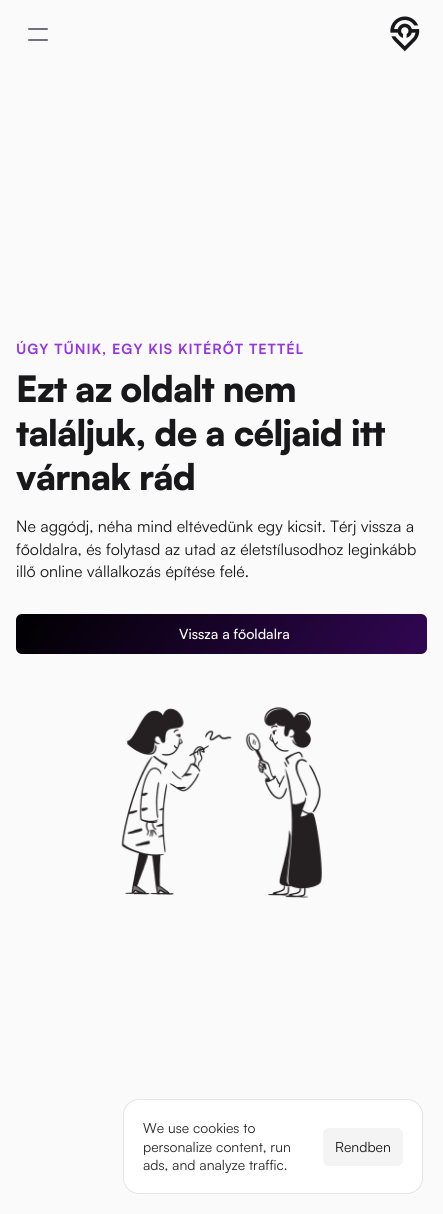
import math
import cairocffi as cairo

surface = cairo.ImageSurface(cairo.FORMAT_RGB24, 443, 1214)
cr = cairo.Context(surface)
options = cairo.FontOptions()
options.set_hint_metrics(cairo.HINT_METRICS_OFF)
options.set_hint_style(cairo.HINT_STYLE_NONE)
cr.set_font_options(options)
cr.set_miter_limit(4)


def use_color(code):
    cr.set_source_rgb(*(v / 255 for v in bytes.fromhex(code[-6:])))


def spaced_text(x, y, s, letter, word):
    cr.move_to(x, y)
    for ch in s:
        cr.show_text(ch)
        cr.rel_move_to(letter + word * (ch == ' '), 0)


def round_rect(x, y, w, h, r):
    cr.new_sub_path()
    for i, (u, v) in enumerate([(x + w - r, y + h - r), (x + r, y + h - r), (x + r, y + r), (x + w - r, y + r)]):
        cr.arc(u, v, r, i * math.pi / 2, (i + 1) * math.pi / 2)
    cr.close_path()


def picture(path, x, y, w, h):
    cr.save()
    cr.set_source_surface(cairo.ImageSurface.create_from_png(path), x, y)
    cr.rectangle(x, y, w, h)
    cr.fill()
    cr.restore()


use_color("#fafafa")
cr.paint()
use_color("#71717a")
round_rect(28, 28, 20, 2, 1)
cr.fill()
round_rect(28, 39, 20, 2, 1)
cr.fill()
picture("img1.png", 390, 16, 30, 36)
cr.select_font_face("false", cairo.FONT_SLANT_NORMAL, cairo.FONT_WEIGHT_BOLD)
cr.set_font_size(14.1)
use_color("#9333ea")
spaced_text(16, 354, "ÚGY TŰNIK, EGY KIS KITÉRŐT TETTÉL", 1, 0)
cr.select_font_face("Satoshi Black")
cr.set_font_size(36)
use_color("#18181b")
spaced_text(16, 402, "Ezt az oldalt nem", -0.75, 0)
spaced_text(16, 446, "találjuk, de a céljaid itt", -0.75, 0)
spaced_text(16, 490, "várnak rád", -0.75, 0)
cr.select_font_face("false")
cr.set_font_size(16)
cr.move_to(16, 532)
cr.show_text("Ne aggódj, néha mind eltévedünk egy kicsit. Térj vissza a")
cr.move_to(16, 555)
cr.show_text("főoldalra, és folytasd az utad az életstílusodhoz leginkább")
cr.move_to(16, 577)
cr.show_text("illő online vállalkozás építése felé.")
gradient = cairo.LinearGradient(84, 527, 414, 784)
gradient.add_color_stop_rgba(0, 0, 0, 0, 1)
gradient.add_color_stop_rgba(1, 0.231, 0.031, 0.392, 1)
cr.set_source(gradient)
round_rect(16, 614, 411, 40, 6)
cr.fill()
cr.select_font_face("Satoshi Medium")
cr.set_font_size(14.1)
use_color("#ffffff")
cr.move_to(179, 639)
cr.show_text("Vissza a főoldalra")
picture("img2.png", 121, 707, 201, 191)
round_rect(123.5, 1099.5, 299, 94, 15.5)
cr.fill_preserve()
use_color("#e4e4e7")
cr.set_line_width(1)
cr.stroke()
cr.select_font_face("false")
cr.set_font_size(14)
use_color("#27272a")
cr.move_to(143, 1133)
cr.show_text("We use cookies to")
cr.move_to(143, 1152)
cr.show_text("personalize content, run")
cr.move_to(143, 1170)
cr.show_text("ads, and analyze traffic.")
use_color("#f4f4f5")
round_rect(323, 1128, 80, 38, 6)
cr.fill()
use_color("#18181b")
cr.move_to(335, 1152)
cr.show_text("Rendben")
surface.write_to_png("result.png")
